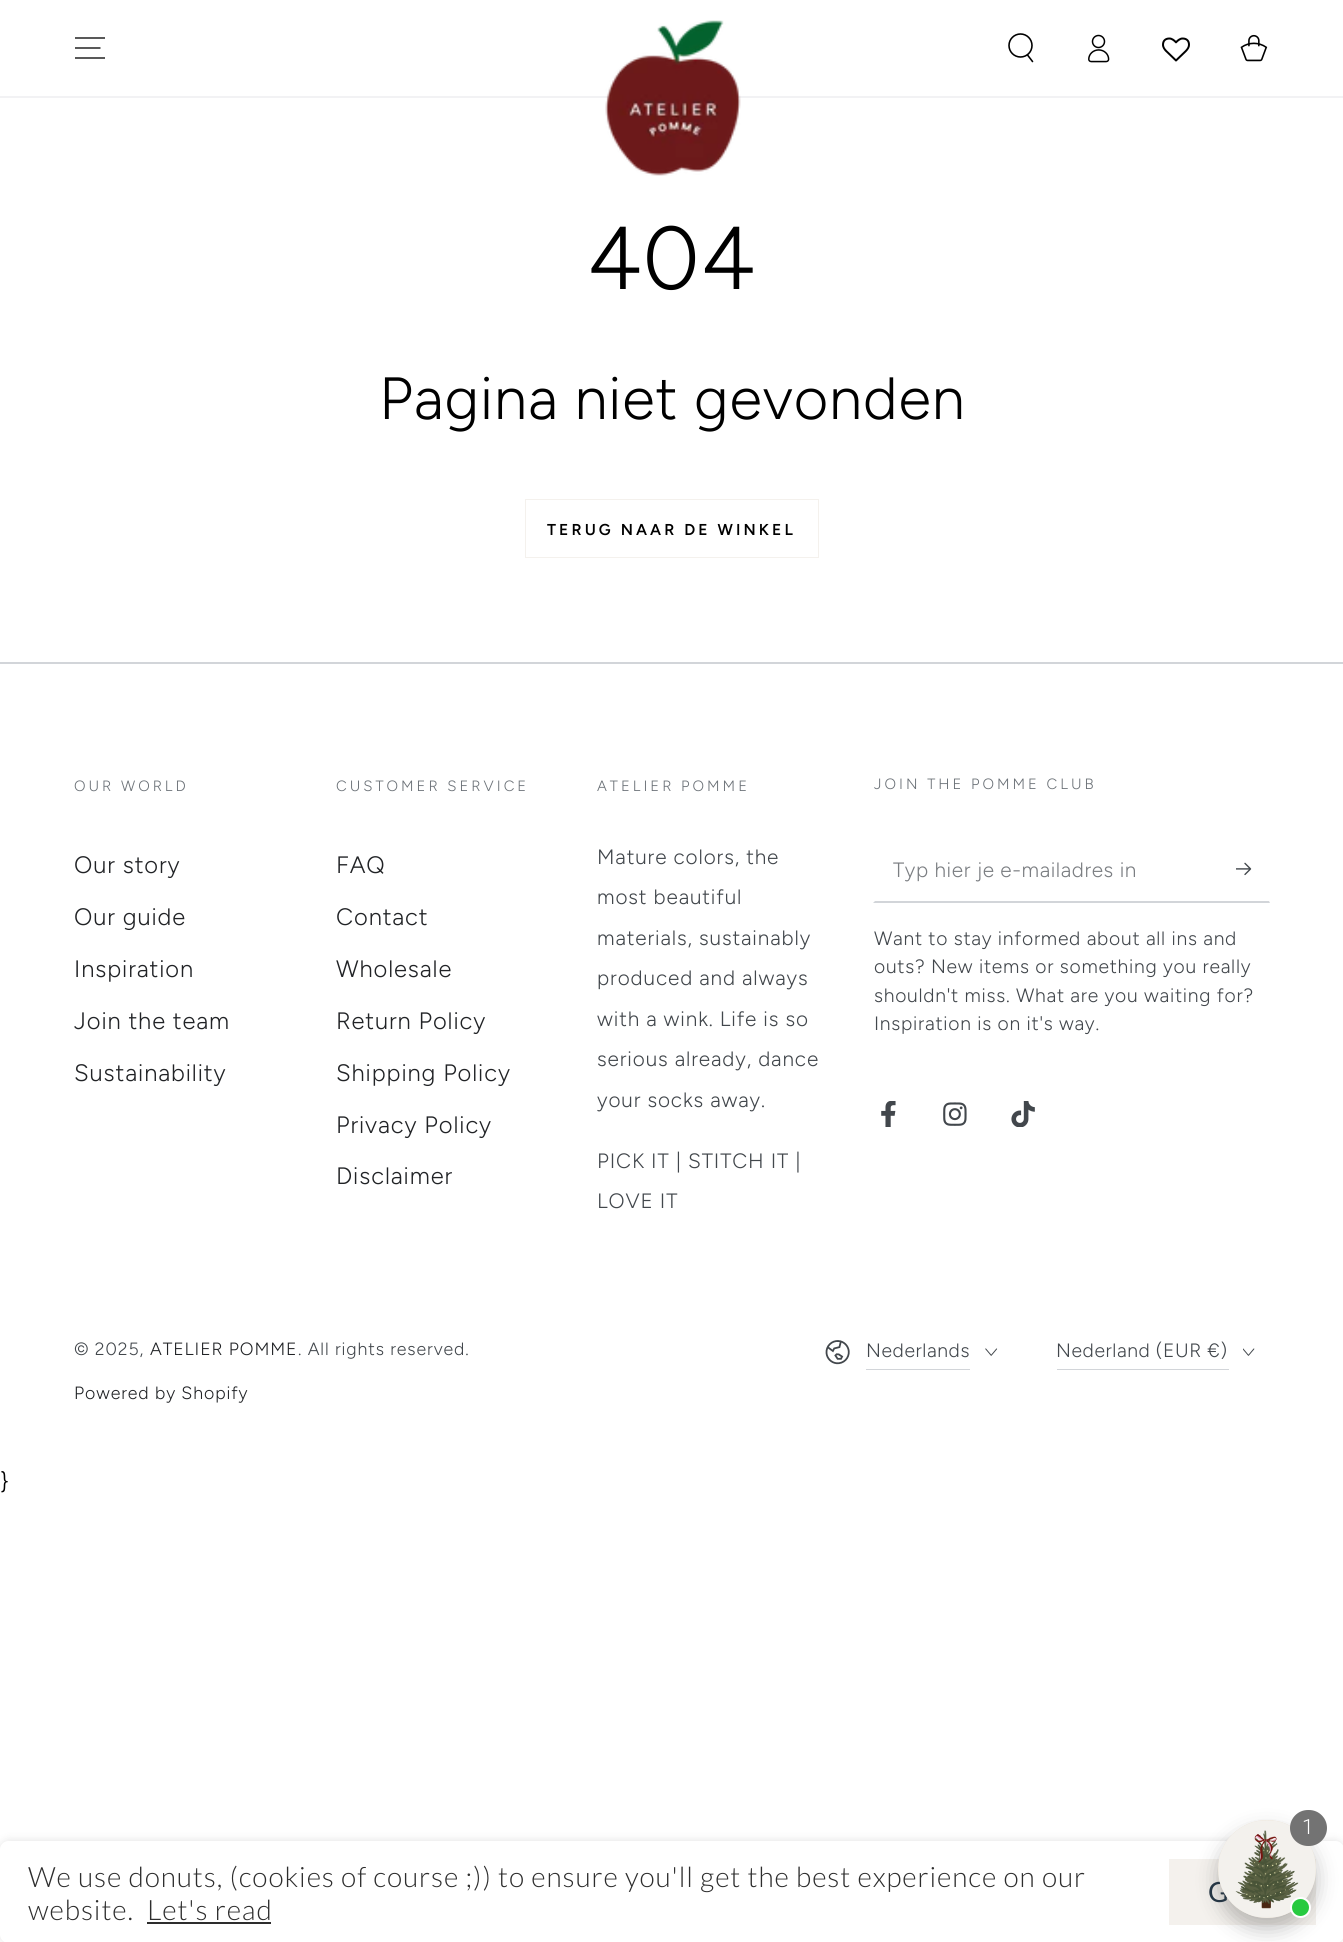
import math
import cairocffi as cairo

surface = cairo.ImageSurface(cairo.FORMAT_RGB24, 1343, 1942)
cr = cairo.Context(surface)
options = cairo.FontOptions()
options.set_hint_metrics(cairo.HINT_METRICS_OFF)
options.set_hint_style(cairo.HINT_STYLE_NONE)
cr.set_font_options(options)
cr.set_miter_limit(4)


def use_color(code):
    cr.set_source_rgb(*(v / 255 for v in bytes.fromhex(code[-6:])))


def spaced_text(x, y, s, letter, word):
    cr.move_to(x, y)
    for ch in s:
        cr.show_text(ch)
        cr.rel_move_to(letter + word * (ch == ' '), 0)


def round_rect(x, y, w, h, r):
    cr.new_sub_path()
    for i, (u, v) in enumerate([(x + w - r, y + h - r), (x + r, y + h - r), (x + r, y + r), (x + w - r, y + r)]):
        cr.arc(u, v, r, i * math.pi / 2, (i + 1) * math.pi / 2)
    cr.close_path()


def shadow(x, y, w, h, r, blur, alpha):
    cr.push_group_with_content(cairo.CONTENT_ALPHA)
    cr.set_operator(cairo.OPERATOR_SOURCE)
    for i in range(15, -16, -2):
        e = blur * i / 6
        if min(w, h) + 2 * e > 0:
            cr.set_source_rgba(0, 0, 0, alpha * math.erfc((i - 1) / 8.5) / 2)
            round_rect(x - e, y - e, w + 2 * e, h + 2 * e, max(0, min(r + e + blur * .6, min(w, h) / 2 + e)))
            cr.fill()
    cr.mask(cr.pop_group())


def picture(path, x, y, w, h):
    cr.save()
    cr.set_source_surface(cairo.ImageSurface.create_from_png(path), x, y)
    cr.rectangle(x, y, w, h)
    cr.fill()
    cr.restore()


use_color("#ffffff")
cr.paint()
use_color("#f2f2f4")
cr.rectangle(0, 96, 1343, 2)
cr.fill()
picture("img1.png", 605, 20, 136, 156)
cr.new_path()
cr.move_to(75, 58)
cr.line_to(105, 58)
cr.move_to(75, 48)
cr.line_to(100.5, 48)
cr.move_to(75, 38)
cr.line_to(105, 38)
use_color("#000000")
cr.set_line_width(1.3)
cr.stroke()
cr.arc(1020.5, 45.5, 11.5, 0, 2 * math.pi)
cr.set_line_width(1.6)
cr.stroke()
cr.new_path()
cr.move_to(1027.5, 55)
cr.line_to(1032.5, 61.5)
cr.set_line_cap(cairo.LINE_CAP_ROUND)
cr.stroke()
picture("img2.png", 1088, 34, 22, 29)
picture("img3.png", 1162, 37, 28, 25)
picture("img4.png", 1240, 34, 28, 28)
cr.select_font_face("Figtree Light")
cr.set_font_size(89)
spaced_text(587, 289, "404", 0.9, 0)
cr.set_font_size(59.5)
spaced_text(379, 419, "Pagina niet gevonden", 0.9, 0)
cr.rectangle(525.5, 499.5, 293, 58)
use_color("#f4f1ed")
cr.set_line_width(1)
cr.set_line_cap(cairo.LINE_CAP_BUTT)
cr.stroke()
cr.select_font_face("Figtree SemiBold")
cr.set_font_size(15.75)
use_color("#000000")
spaced_text(547, 535, "TERUG NAAR DE WINKEL", 3.1, 0)
use_color("#d2d5d9")
cr.rectangle(0, 662, 1343, 2)
cr.fill()
cr.select_font_face("Figtree Light")
cr.set_font_size(14.9)
use_color("#6b7177")
spaced_text(74, 791, "OUR WORLD", 3, 0)
cr.set_font_size(23.75)
use_color("#212326")
spaced_text(74, 873, "Our story", 0.9, 0)
spaced_text(74, 925, "Our guide", 0.9, 0)
spaced_text(74, 977, "Inspiration", 0.9, 0)
spaced_text(74, 1029, "Join the team", 0.9, 0)
spaced_text(74, 1081, "Sustainability", 0.9, 0)
cr.set_font_size(14.9)
use_color("#6b7177")
spaced_text(336, 791, "CUSTOMER SERVICE", 3, 0)
cr.set_font_size(23.75)
use_color("#212326")
spaced_text(336, 873, "FAQ", 0.9, 0)
spaced_text(336, 925, "Contact", 0.9, 0)
spaced_text(336, 977, "Wholesale", 0.9, 0)
spaced_text(336, 1029, "Return Policy", 0.9, 0)
spaced_text(336, 1081, "Shipping Policy", 0.9, 0)
spaced_text(336, 1133, "Privacy Policy", 0.9, 0)
spaced_text(336, 1184, "Disclaimer", 0.9, 0)
cr.set_font_size(14.9)
use_color("#6b7177")
spaced_text(597, 791, "ATELIER POMME", 3, 0)
cr.set_font_size(20.75)
use_color("#42474c")
spaced_text(597, 864, "Mature colors, the", 0.9, 0)
spaced_text(597, 904, "most beautiful", 0.9, 0)
spaced_text(597, 945, "materials, sustainably", 0.9, 0)
spaced_text(597, 985, "produced and always", 0.9, 0)
spaced_text(597, 1026, "with a wink. Life is so", 0.9, 0)
spaced_text(597, 1066, "serious already, dance", 0.9, 0)
spaced_text(597, 1107, "your socks away.", 0.9, 0)
spaced_text(597, 1168, "PICK IT | STITCH IT |", 0.9, 0)
spaced_text(597, 1208, "LOVE IT", 0.9, 0)
cr.set_font_size(14.9)
use_color("#6b7177")
spaced_text(874, 789, "JOIN THE POMME CLUB", 3, 0)
use_color("#d2d5d9")
cr.new_path()
cr.move_to(1270, 903)
cr.line_to(873, 903)
cr.line_to(875, 901)
cr.line_to(1269, 901)
cr.close_path()
cr.fill()
cr.set_font_size(20.75)
use_color("#7b7e82")
spaced_text(893, 877, "Typ hier je e-mailadres in", 0.6, 0)
picture("img5.png", 1236, 862, 16, 14)
cr.set_font_size(19.3)
use_color("#42474c")
spaced_text(874, 945, "Want to stay informed about all ins and", 0.75, 0)
spaced_text(874, 973, "outs? New items or something you really", 0.75, 0)
spaced_text(874, 1002, "shouldn't miss. What are you waiting for?", 0.75, 0)
spaced_text(874, 1030, "Inspiration is on it's way.", 0.75, 0)
picture("img6.png", 881, 1101, 15, 26)
picture("img7.png", 943, 1102, 24, 24)
picture("img8.png", 1011, 1101, 24, 26)
cr.set_font_size(17.75)
spaced_text(74, 1355, "© 2025,", 0.9, 0)
use_color("#212326")
spaced_text(150, 1355, "ATELIER POMME", 0.9, 0)
use_color("#42474c")
spaced_text(298, 1355, ". All rights reserved.", 0.9, 0)
use_color("#212326")
spaced_text(74, 1399, "Powered by Shopify", 0.9, 0)
picture("img9.png", 825, 1340, 25, 25)
use_color("#d2d5d9")
cr.rectangle(866, 1369, 104, 1)
cr.fill()
cr.set_font_size(19.3)
use_color("#42474c")
spaced_text(866, 1357, "Nederlands", 0.6, 0)
picture("img10.png", 985, 1348, 13, 8)
use_color("#d2d5d9")
cr.rectangle(1057, 1369, 172, 1)
cr.fill()
use_color("#42474c")
spaced_text(1056, 1357, "Nederland (EUR €)", 0.6, 0)
picture("img11.png", 1243, 1348, 12, 8)
cr.set_font_size(23.75)
use_color("#000000")
spaced_text(0, 1490, "}", 0.9, 0)
cr.save()
cr.set_fill_rule(cairo.FILL_RULE_EVEN_ODD)
cr.new_path()
cr.move_to(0, 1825)
cr.line_to(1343, 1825)
cr.line_to(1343, 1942)
cr.line_to(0, 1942)
cr.close_path()
cr.move_to(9, 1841)
cr.line_to(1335, 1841)
cr.curve_to(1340, 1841, 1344, 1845, 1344, 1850)
cr.line_to(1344, 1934)
cr.curve_to(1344, 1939, 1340, 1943, 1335, 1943)
cr.line_to(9, 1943)
cr.curve_to(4, 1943, 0, 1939, 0, 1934)
cr.line_to(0, 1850)
cr.curve_to(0, 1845, 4, 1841, 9, 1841)
cr.close_path()
cr.clip()
use_color("#000000")
shadow(0, 1841, 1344, 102, 9, 5, 0.12)
cr.restore()
use_color("#f4f1ed")
cr.rectangle(1169, 1859, 147, 66)
cr.fill()
use_color("#000000")
shadow(1218, 1831, 98, 98, 49, 10.5, 0.25)
cr.select_font_face("Lato")
cr.set_font_size(28)
use_color("#263644")
cr.move_to(1208, 1902)
cr.show_text("G")
use_color("#eae0d3")
cr.new_path()
cr.arc(1267, 1869, 49, 0, 2 * math.pi)
cr.fill()
picture("img12.png", 1218, 1820, 98, 98)
use_color("#27ca40")
cr.arc(1300.5, 1907.5, 9.5, 0, 2 * math.pi)
cr.fill_preserve()
use_color("#ffffff")
cr.set_line_width(2)
cr.stroke()
use_color("#737373")
round_rect(1290, 1810, 37, 36, 18)
cr.fill()
cr.select_font_face("Roboto Light")
cr.set_font_size(21)
use_color("#ffffff")
spaced_text(1302, 1834, "1", 0.9, 0)
cr.select_font_face("Lato Light")
cr.set_font_size(28)
use_color("#2d2d2d")
spaced_text(28, 1887, "We use donuts, (cookies of course ;)) to ensure you'll get the best experience on our", 0.9, 0)
spaced_text(28, 1920, "website.", 0.9, 0)
spaced_text(147, 1920, "Let's read", 0.9, 0)
cr.rectangle(147, 1922, 124, 2)
cr.fill()
surface.write_to_png("result.png")
